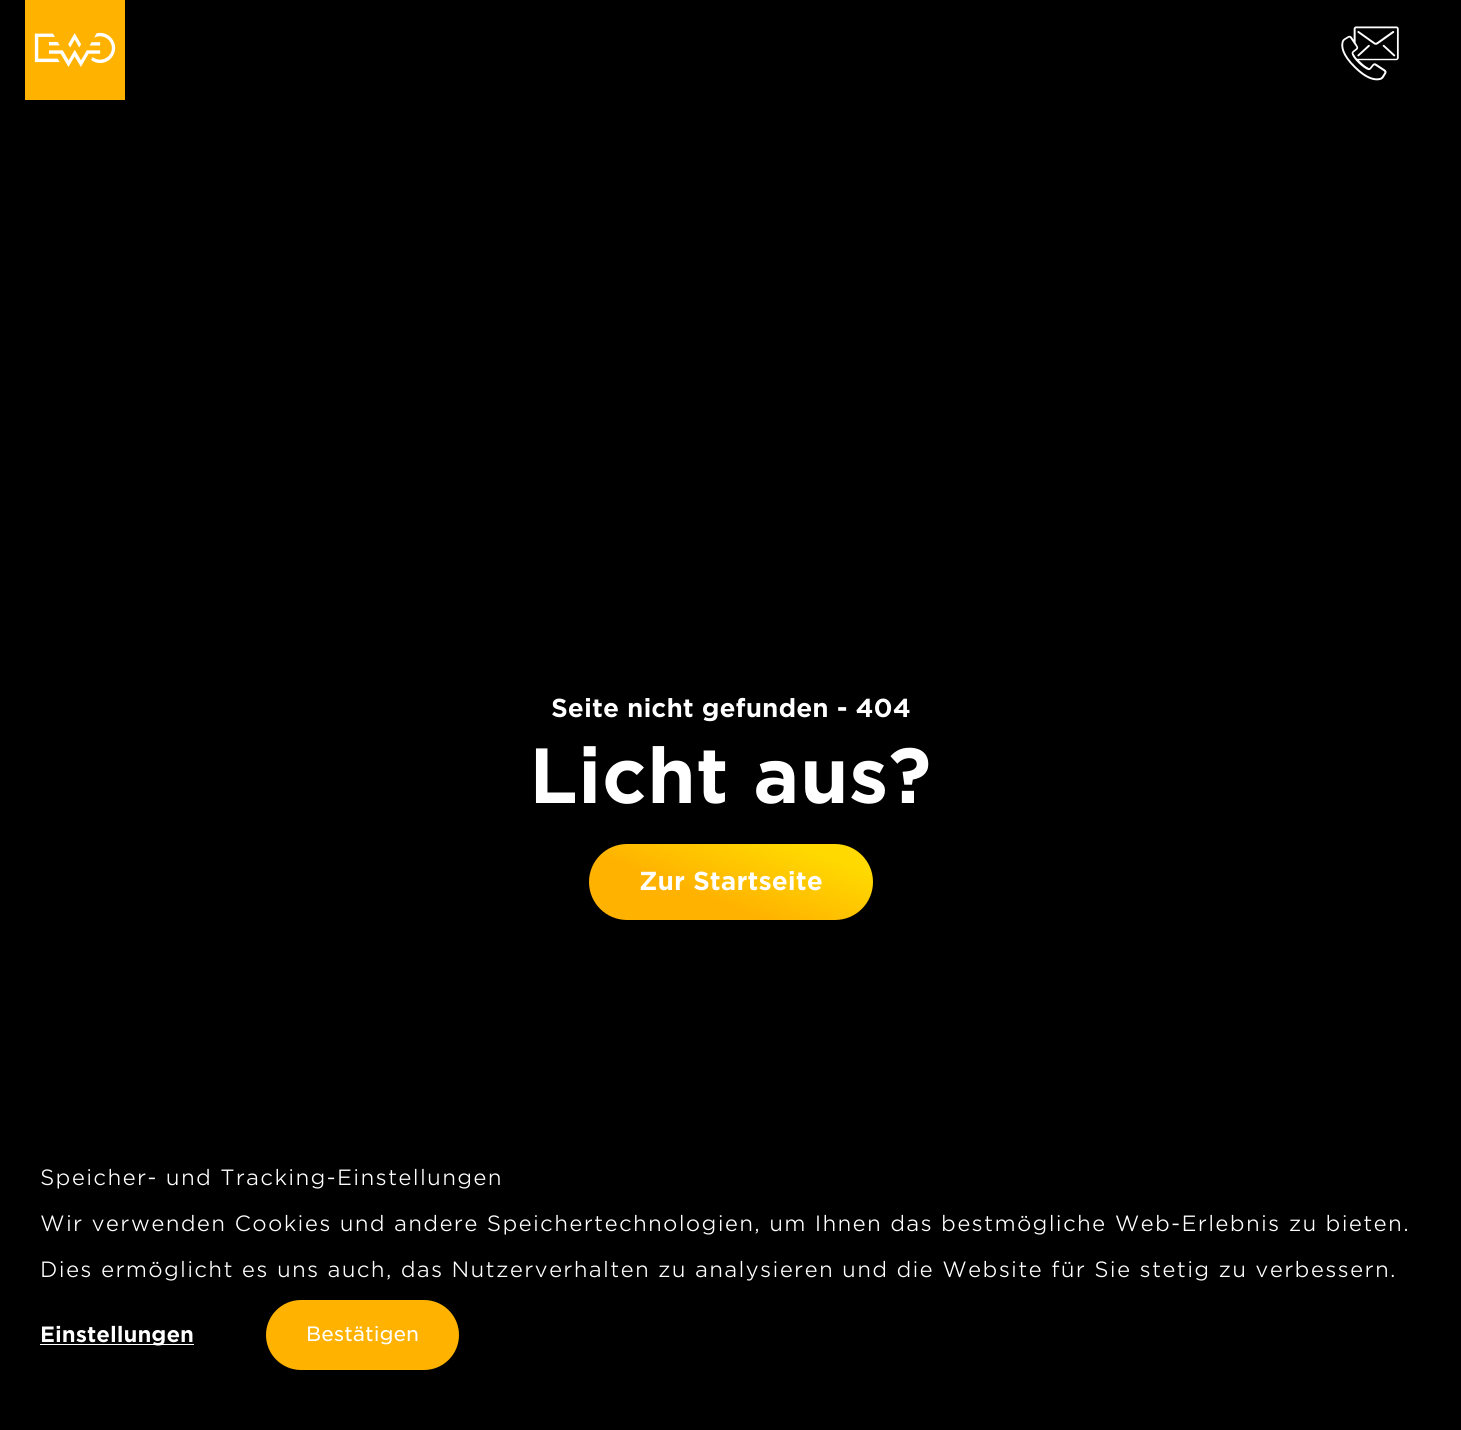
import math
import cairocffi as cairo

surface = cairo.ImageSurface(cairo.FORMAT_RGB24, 1461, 1430)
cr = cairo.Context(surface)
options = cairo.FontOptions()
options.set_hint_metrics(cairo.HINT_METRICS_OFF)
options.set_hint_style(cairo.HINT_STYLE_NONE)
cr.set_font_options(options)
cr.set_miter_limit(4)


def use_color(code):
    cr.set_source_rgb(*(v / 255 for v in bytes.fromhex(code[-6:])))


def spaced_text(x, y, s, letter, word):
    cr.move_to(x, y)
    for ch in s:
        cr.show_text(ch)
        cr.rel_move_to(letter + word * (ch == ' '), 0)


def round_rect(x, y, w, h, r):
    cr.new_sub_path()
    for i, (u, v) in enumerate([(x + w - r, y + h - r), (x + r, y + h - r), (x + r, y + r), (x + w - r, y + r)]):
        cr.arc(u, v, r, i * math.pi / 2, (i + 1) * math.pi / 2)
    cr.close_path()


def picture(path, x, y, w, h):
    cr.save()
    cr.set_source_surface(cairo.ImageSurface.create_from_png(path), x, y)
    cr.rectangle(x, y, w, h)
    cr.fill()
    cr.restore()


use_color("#000000")
cr.paint()
picture("img1.png", 25, 0, 100, 100)
picture("img2.png", 1341, 26, 58, 55)
cr.select_font_face("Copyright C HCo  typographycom")
cr.set_font_size(25)
use_color("#ffffff")
cr.move_to(551, 717)
cr.show_text("Seite nicht gefunden - 404")
cr.set_font_size(75)
cr.move_to(529, 803)
cr.show_text("Licht aus?")
gradient = cairo.LinearGradient(638, 754, 539, 1010)
gradient.add_color_stop_rgba(0, 1, 0.851, 0, 1)
gradient.add_color_stop_rgba(0.1, 1, 0.851, 0, 1)
gradient.add_color_stop_rgba(0.4, 1, 0.698, 0, 1)
gradient.add_color_stop_rgba(1, 1, 0.698, 0, 1)
cr.set_source(gradient)
round_rect(589, 844, 284, 76, 38)
cr.fill()
cr.set_font_size(25)
use_color("#ffffff")
cr.move_to(639, 890)
cr.show_text("Zur Startseite")
cr.select_font_face("Copyright C HCo  typographycom Light")
cr.set_font_size(21.25)
spaced_text(40, 1185, "Speicher- und Tracking-Einstellungen", 1.25, 0)
spaced_text(40, 1231, "Wir verwenden Cookies und andere Speichertechnologien, um Ihnen das bestmögliche Web-Erlebnis zu bieten.", 1.25, 0)
spaced_text(40, 1277, "Dies ermöglicht es uns auch, das Nutzerverhalten zu analysieren und die Website für Sie stetig zu verbessern.", 1.25, 0)
cr.rectangle(40, 1344, 154, 1)
cr.fill()
cr.select_font_face("Copyright C HCo  typographycom")
cr.move_to(40, 1342)
cr.show_text("Einstellungen")
use_color("#ffb200")
round_rect(266, 1300, 193, 70, 35)
cr.fill()
cr.select_font_face("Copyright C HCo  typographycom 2 Light")
cr.set_font_size(20)
use_color("#ffffff")
cr.move_to(306, 1341)
cr.show_text("Bestätigen")
surface.write_to_png("result.png")
